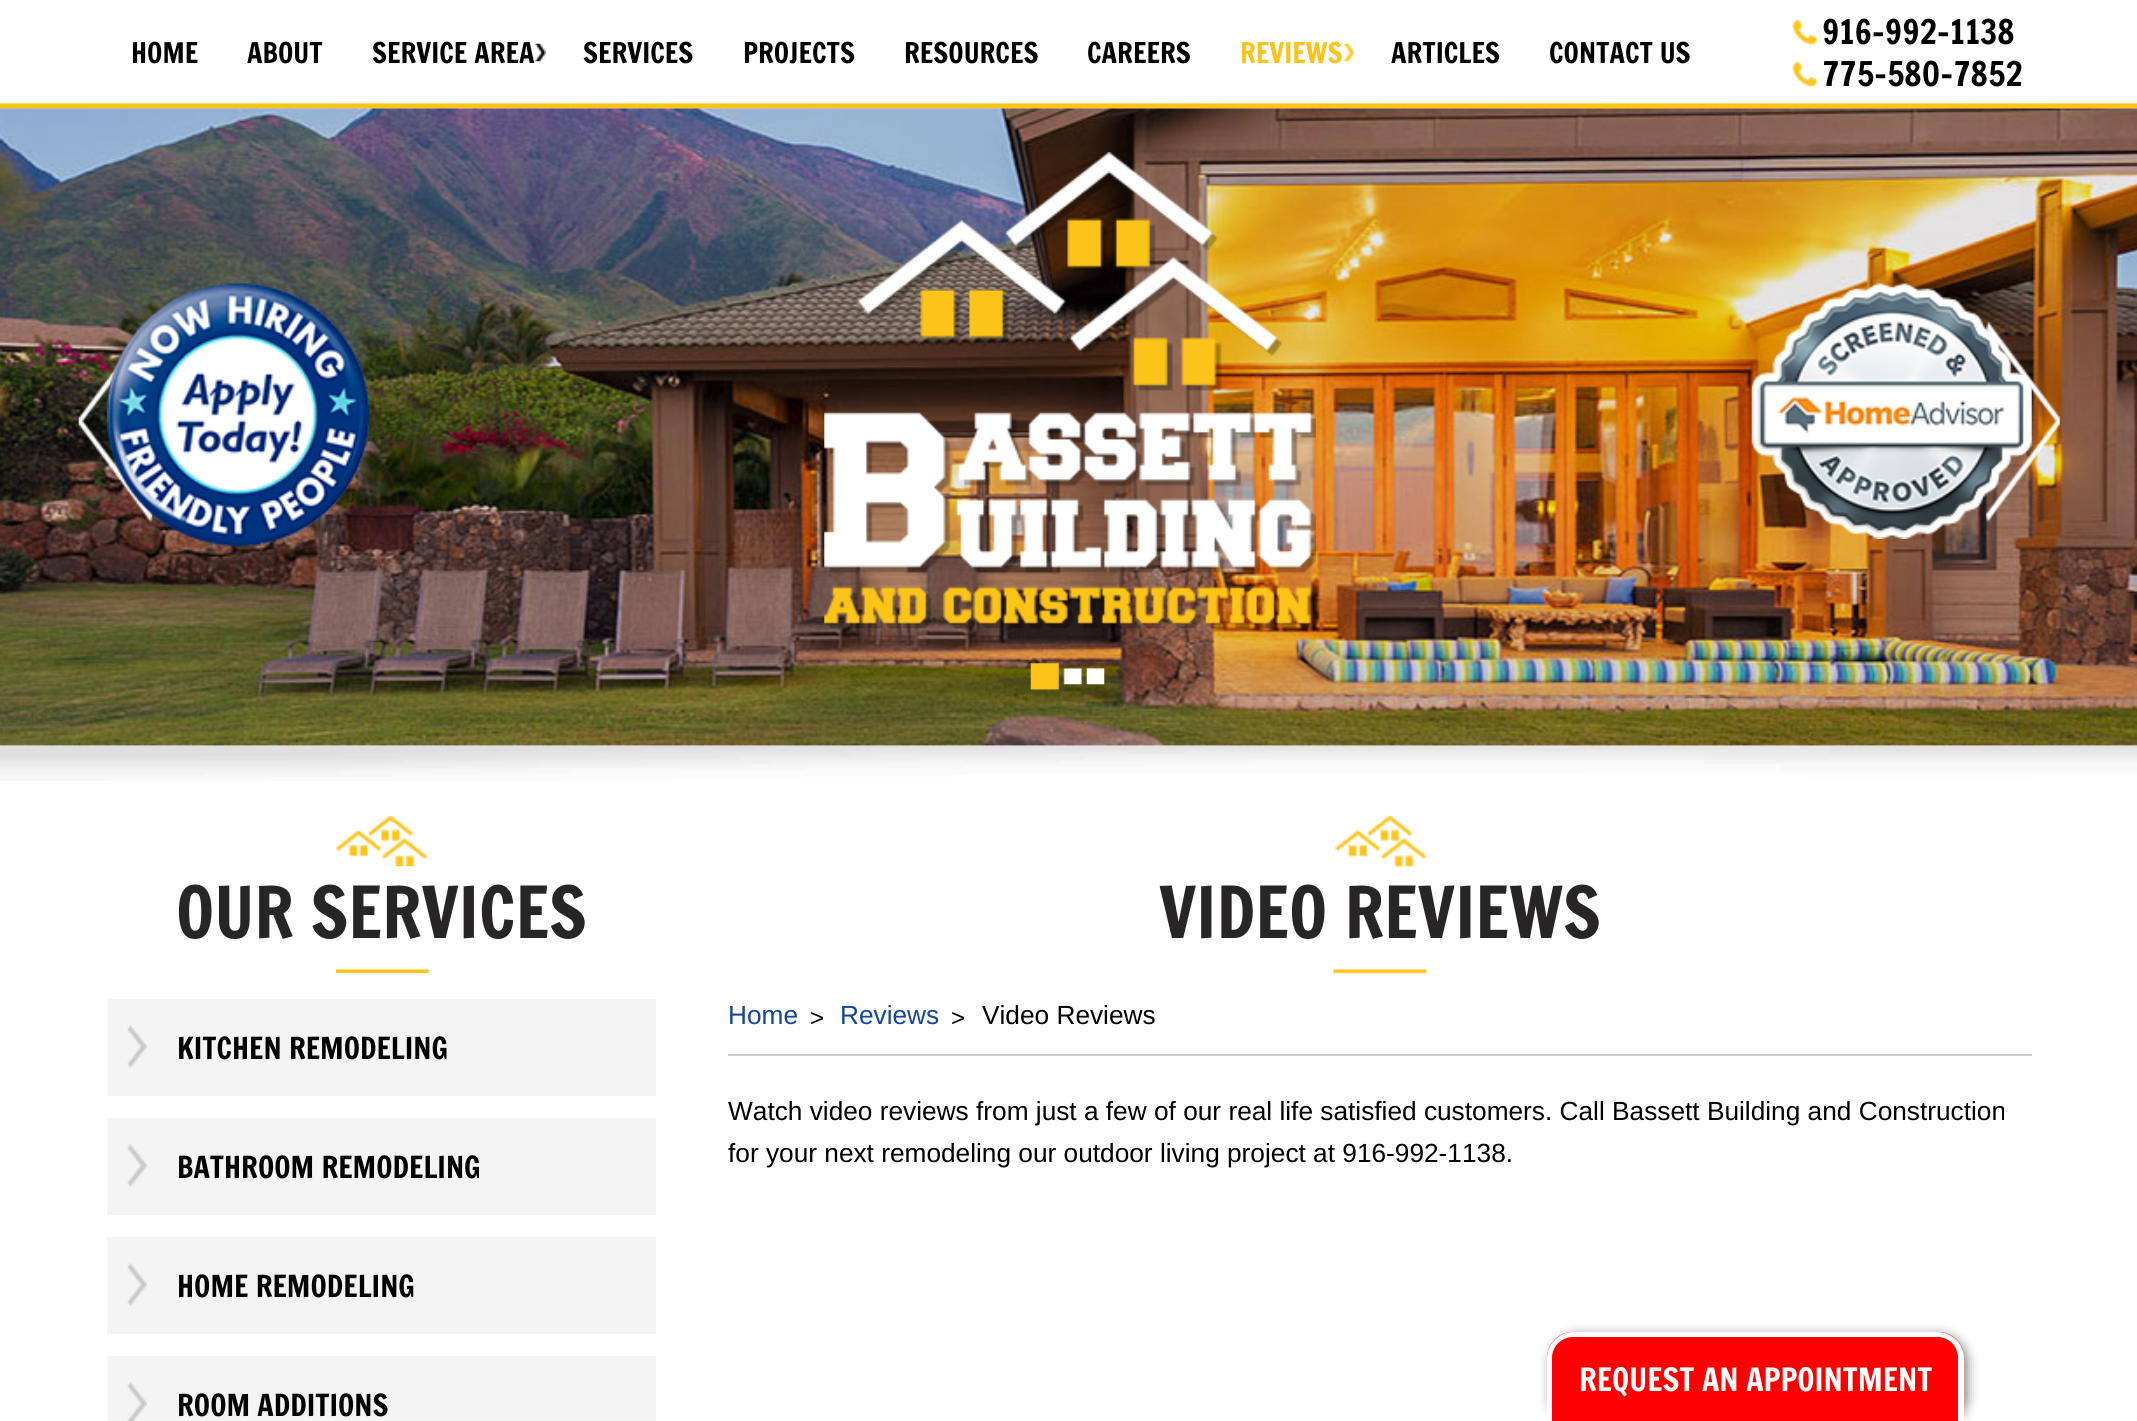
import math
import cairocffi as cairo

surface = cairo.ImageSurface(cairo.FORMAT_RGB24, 2137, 1421)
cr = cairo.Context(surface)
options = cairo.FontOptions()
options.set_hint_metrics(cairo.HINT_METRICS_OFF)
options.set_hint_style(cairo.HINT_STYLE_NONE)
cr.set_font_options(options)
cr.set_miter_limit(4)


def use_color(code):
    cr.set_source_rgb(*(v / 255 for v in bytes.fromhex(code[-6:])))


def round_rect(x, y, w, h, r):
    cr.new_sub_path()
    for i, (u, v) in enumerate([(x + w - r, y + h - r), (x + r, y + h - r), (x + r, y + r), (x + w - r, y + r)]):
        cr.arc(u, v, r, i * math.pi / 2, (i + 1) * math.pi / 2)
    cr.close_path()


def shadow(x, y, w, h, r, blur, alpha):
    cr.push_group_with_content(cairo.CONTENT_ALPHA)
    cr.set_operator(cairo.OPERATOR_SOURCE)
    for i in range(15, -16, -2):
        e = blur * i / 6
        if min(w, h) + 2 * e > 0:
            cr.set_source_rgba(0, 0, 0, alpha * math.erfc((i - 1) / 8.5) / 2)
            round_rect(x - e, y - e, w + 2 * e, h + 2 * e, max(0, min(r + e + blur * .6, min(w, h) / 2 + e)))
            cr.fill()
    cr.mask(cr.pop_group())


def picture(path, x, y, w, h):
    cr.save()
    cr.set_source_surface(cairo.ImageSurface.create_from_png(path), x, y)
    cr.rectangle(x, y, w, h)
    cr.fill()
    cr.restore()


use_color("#ffffff")
cr.paint()
picture("img1.png", 0, 102, 2137, 7)
picture("img2.png", 1792, 19, 27, 27)
cr.select_font_face("Francois One")
cr.set_font_size(33.25)
use_color("#000000")
cr.move_to(1822, 44)
cr.show_text("916-992-1138")
cr.set_font_size(28)
cr.move_to(131, 63)
cr.show_text("HOME")
cr.move_to(247, 63)
cr.show_text("ABOUT")
picture("img3.png", 535, 43, 11, 19)
cr.move_to(372, 63)
cr.show_text("SERVICE AREA")
cr.move_to(583, 63)
cr.show_text("SERVICES")
cr.move_to(743, 63)
cr.show_text("PROJECTS")
cr.move_to(904, 63)
cr.show_text("RESOURCES")
cr.move_to(1087, 63)
cr.show_text("CAREERS")
picture("img4.png", 1344, 43, 11, 19)
use_color("#fcc319")
cr.move_to(1240, 63)
cr.show_text("REVIEWS")
use_color("#000000")
cr.move_to(1391, 63)
cr.show_text("ARTICLES")
cr.move_to(1549, 63)
cr.show_text("CONTACT US")
picture("img5.png", 1792, 61, 27, 27)
cr.set_font_size(33.25)
cr.move_to(1822, 86)
cr.show_text("775-580-7852")
picture("img6.png", 0, 108, 2137, 1)
picture("img7.png", 0, 108, 2137, 638)
picture("img11.png", 78, 358, 75, 164)
picture("img8.png", 106, 283, 264, 263)
picture("img9.png", 824, 152, 492, 477)
picture("img12.png", 1986, 322, 74, 200)
picture("img10.png", 1751, 283, 281, 256)
picture("img13.png", 1030, 663, 29, 28)
picture("img14.png", 1063, 668, 19, 17)
picture("img15.png", 1086, 668, 19, 17)
picture("img16.png", 0, 746, 2137, 35)
picture("img17.png", 336, 816, 93, 157)
cr.set_font_size(70)
use_color("#272525")
cr.move_to(176, 938)
cr.show_text("OUR SERVICES")
use_color("#f4f4f4")
cr.rectangle(107, 999, 549, 97)
cr.fill()
picture("img18.png", 127, 1025, 20, 43)
cr.set_font_size(29.75)
use_color("#000000")
cr.move_to(177, 1059)
cr.show_text("KITCHEN REMODELING")
use_color("#f4f4f4")
cr.rectangle(107, 1118, 549, 97)
cr.fill()
picture("img18.png", 127, 1144, 20, 43)
use_color("#000000")
cr.move_to(177, 1178)
cr.show_text("BATHROOM REMODELING")
use_color("#f4f4f4")
cr.rectangle(107, 1237, 549, 97)
cr.fill()
picture("img18.png", 127, 1263, 20, 43)
use_color("#000000")
cr.move_to(177, 1297)
cr.show_text("HOME REMODELING")
use_color("#f4f4f4")
cr.rectangle(107, 1356, 549, 65)
cr.fill()
picture("img19.png", 127, 1382, 20, 39)
use_color("#000000")
cr.move_to(177, 1416)
cr.show_text("ROOM ADDITIONS")
picture("img20.png", 1333, 816, 94, 158)
cr.set_font_size(70)
use_color("#272525")
cr.move_to(1159, 938)
cr.show_text("VIDEO REVIEWS")
use_color("#cccccc")
cr.rectangle(728, 1054, 1304, 2)
cr.fill()
cr.select_font_face("Liberation Sans")
cr.set_font_size(26.25)
use_color("#14449d")
cr.move_to(728, 1024)
cr.show_text("Home")
cr.set_font_size(24)
use_color("#000000")
cr.move_to(810, 1026)
cr.show_text(">")
cr.set_font_size(26.25)
use_color("#14449d")
cr.move_to(840, 1024)
cr.show_text("Reviews")
cr.set_font_size(24)
use_color("#000000")
cr.move_to(951, 1026)
cr.show_text(">")
cr.set_font_size(26.25)
cr.move_to(982, 1024)
cr.show_text("Video Reviews")
cr.move_to(728, 1120)
cr.show_text("Watch video reviews from just a few of our real life satisfied customers. Call Bassett Building and Construction")
cr.move_to(728, 1162)
cr.show_text("for your next remodeling our outdoor living project at 916-992-1138.")
use_color("#000000")
shadow(1551, 1335, 416, 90, 26, 6, 0.5)
use_color("#ff0000")
cr.new_path()
cr.move_to(1573, 1332)
cr.line_to(1938, 1332)
cr.curve_to(1952.5, 1332, 1964, 1343.5, 1964, 1358)
cr.line_to(1964, 1421)
cr.line_to(1547, 1421)
cr.line_to(1547, 1358)
cr.curve_to(1547, 1343.5, 1558.5, 1332, 1573, 1332)
cr.close_path()
cr.fill()
use_color("#ffffff")
cr.set_fill_rule(cairo.FILL_RULE_EVEN_ODD)
cr.new_path()
cr.move_to(1573, 1332)
cr.line_to(1937, 1332)
cr.curve_to(1952, 1332, 1964, 1344, 1964, 1358)
cr.line_to(1964, 1421)
cr.line_to(1547, 1421)
cr.line_to(1547, 1358)
cr.curve_to(1547, 1344, 1559, 1332, 1573, 1332)
cr.close_path()
cr.move_to(1573, 1337)
cr.line_to(1937, 1337)
cr.curve_to(1949, 1337, 1958, 1346, 1958, 1358)
cr.line_to(1958, 1421)
cr.line_to(1552, 1421)
cr.line_to(1552, 1358)
cr.curve_to(1552, 1346, 1562, 1337, 1573, 1337)
cr.close_path()
cr.fill()
cr.select_font_face("Francois One")
cr.set_font_size(31.5)
cr.move_to(1579, 1391)
cr.show_text("REQUEST AN APPOINTMENT")
surface.write_to_png("result.png")
